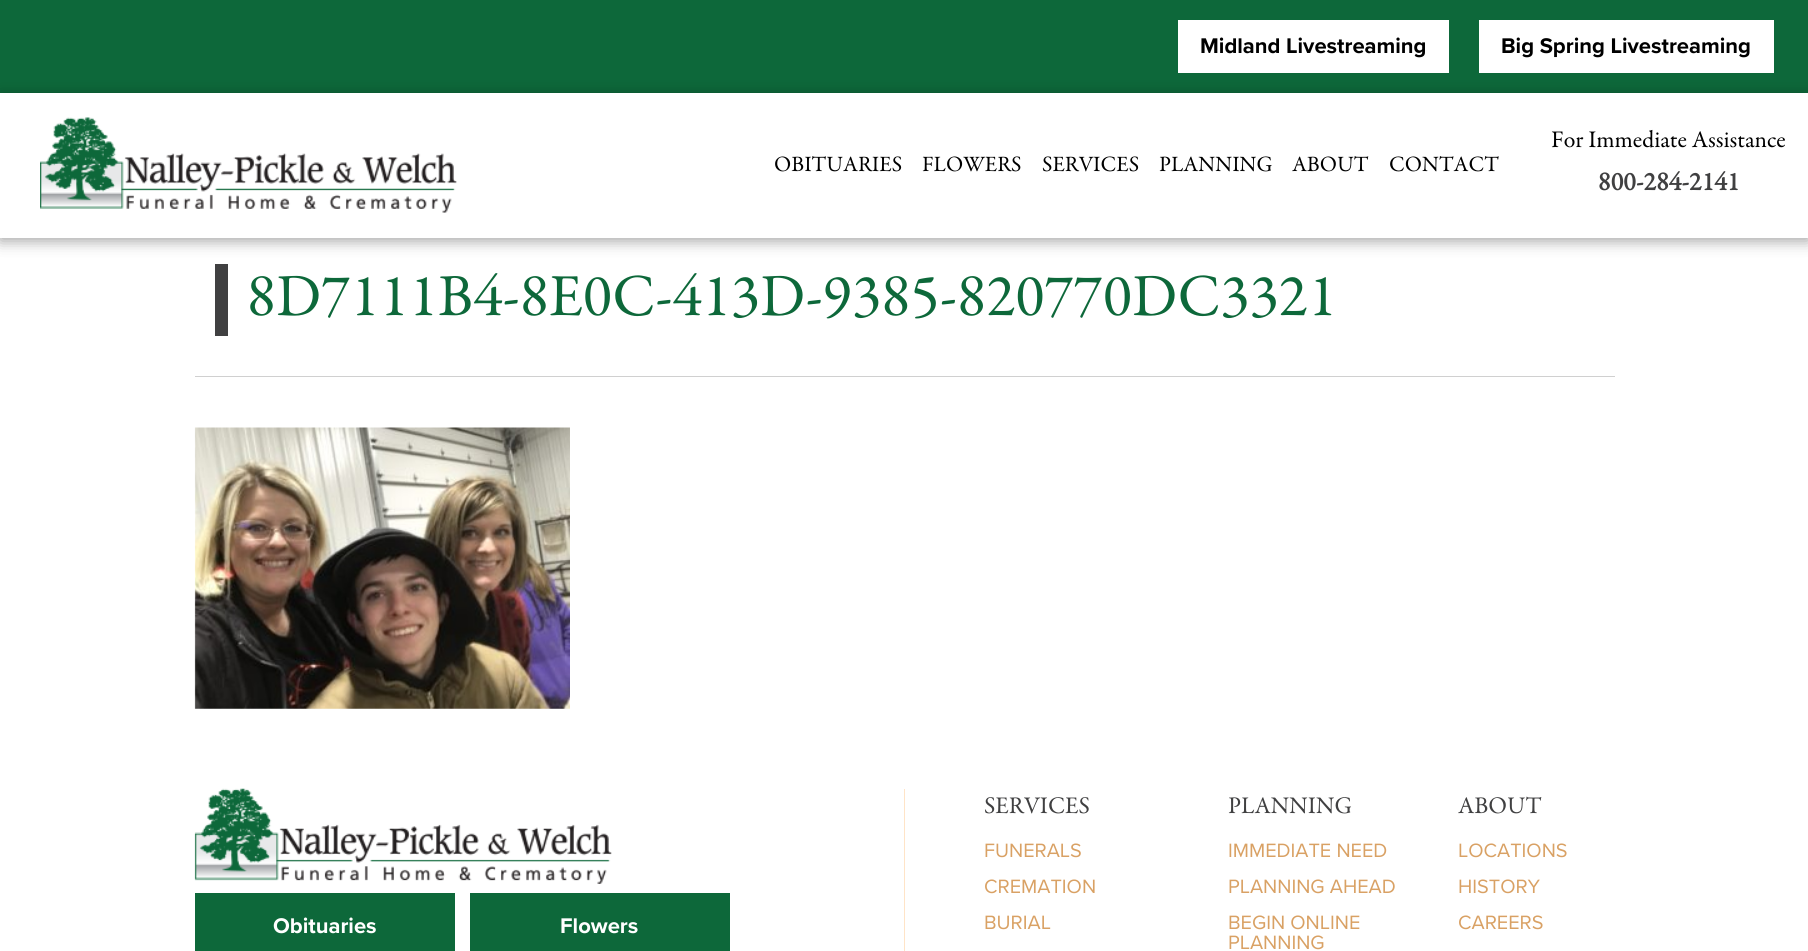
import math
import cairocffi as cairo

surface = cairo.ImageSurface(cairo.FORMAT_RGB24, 1808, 951)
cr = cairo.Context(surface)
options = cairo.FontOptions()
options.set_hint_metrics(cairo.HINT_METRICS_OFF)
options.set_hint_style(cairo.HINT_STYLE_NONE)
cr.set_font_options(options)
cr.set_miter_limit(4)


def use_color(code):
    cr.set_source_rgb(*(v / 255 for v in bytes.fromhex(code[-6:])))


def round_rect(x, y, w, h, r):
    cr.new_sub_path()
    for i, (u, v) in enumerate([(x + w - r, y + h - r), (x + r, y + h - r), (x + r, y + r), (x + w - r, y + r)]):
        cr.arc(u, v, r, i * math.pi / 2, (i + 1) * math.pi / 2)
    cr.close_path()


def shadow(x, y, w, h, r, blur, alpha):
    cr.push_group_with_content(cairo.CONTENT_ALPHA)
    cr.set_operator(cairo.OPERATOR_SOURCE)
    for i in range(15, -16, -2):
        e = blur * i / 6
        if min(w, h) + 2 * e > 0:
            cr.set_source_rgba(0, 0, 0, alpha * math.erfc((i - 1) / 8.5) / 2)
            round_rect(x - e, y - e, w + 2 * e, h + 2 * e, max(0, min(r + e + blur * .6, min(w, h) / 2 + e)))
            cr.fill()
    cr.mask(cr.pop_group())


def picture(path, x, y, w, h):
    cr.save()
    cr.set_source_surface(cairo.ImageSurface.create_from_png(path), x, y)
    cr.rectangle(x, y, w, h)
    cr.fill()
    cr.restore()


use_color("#ffffff")
cr.paint()
use_color("#0d683a")
cr.rectangle(0, 0, 1808, 93)
cr.fill()
use_color("#ffffff")
cr.rectangle(1178, 20, 271, 53)
cr.fill()
cr.select_font_face("Proxima Nova", cairo.FONT_SLANT_NORMAL, cairo.FONT_WEIGHT_BOLD)
cr.set_font_size(22)
use_color("#000000")
cr.move_to(1200, 53)
cr.show_text("Midland Livestreaming")
use_color("#ffffff")
cr.rectangle(1479, 20, 295, 53)
cr.fill()
use_color("#000000")
cr.move_to(1501, 53)
cr.show_text("Big Spring Livestreaming")
use_color("#404041")
cr.rectangle(215, 264, 13, 72)
cr.fill()
use_color("#000000")
shadow(0, 96, 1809, 145, 0, 7.5, 0.36)
use_color("#ffffff")
cr.rectangle(0, 93, 1808, 145)
cr.fill()
picture("img1.png", 40, 117, 417, 96)
cr.select_font_face("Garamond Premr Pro")
use_color("#000000")
cr.move_to(774, 171)
cr.show_text("OBITUARIES")
cr.move_to(922, 171)
cr.show_text("FLOWERS")
cr.move_to(1042, 171)
cr.show_text("SERVICES")
cr.move_to(1159, 171)
cr.show_text("PLANNING")
cr.move_to(1292, 171)
cr.show_text("ABOUT")
cr.move_to(1389, 171)
cr.show_text("CONTACT")
cr.set_font_size(24)
cr.move_to(1551, 147)
cr.show_text("For Immediate Assistance")
cr.select_font_face("Garamond Premr Pro", cairo.FONT_SLANT_NORMAL, cairo.FONT_WEIGHT_BOLD)
cr.set_font_size(26)
use_color("#404041")
cr.move_to(1598, 190)
cr.show_text("800-284-2141")
use_color("#d0d0d0")
cr.rectangle(195, 376, 1420, 1)
cr.fill()
cr.select_font_face("Garamond Premr Pro")
cr.set_font_size(60)
use_color("#0d683a")
cr.move_to(247, 315)
cr.show_text("8D7111B4-8E0C-413D-9385-820770DC3321")
picture("img2.png", 194, 427, 376, 282)
use_color("#ffe4c7")
cr.rectangle(904, 789, 1, 162)
cr.fill()
picture("img3.png", 194, 788, 418, 96)
use_color("#0d683a")
cr.rectangle(195, 893, 260, 58)
cr.fill()
cr.select_font_face("Proxima Nova", cairo.FONT_SLANT_NORMAL, cairo.FONT_WEIGHT_BOLD)
cr.set_font_size(22)
use_color("#ffffff")
cr.move_to(273, 933)
cr.show_text("Obituaries")
use_color("#0d683a")
cr.rectangle(470, 893, 260, 58)
cr.fill()
use_color("#ffffff")
cr.move_to(560, 933)
cr.show_text("Flowers")
cr.select_font_face("Garamond Premr Pro")
cr.set_font_size(24)
use_color("#404041")
cr.move_to(984, 813)
cr.show_text("SERVICES")
cr.select_font_face("Proxima Nova")
cr.set_font_size(20)
use_color("#d9a164")
cr.move_to(984, 857)
cr.show_text("FUNERALS")
cr.move_to(984, 893)
cr.show_text("CREMATION")
cr.move_to(984, 929)
cr.show_text("BURIAL")
cr.select_font_face("Garamond Premr Pro")
cr.set_font_size(24)
use_color("#404041")
cr.move_to(1228, 813)
cr.show_text("PLANNING")
cr.select_font_face("Proxima Nova")
cr.set_font_size(20)
use_color("#d9a164")
cr.move_to(1228, 857)
cr.show_text("IMMEDIATE NEED")
cr.move_to(1228, 893)
cr.show_text("PLANNING AHEAD")
cr.move_to(1228, 929)
cr.show_text("BEGIN ONLINE")
cr.move_to(1228, 949)
cr.show_text("PLANNING")
cr.select_font_face("Garamond Premr Pro")
cr.set_font_size(24)
use_color("#404041")
cr.move_to(1458, 813)
cr.show_text("ABOUT")
cr.select_font_face("Proxima Nova")
cr.set_font_size(20)
use_color("#d9a164")
cr.move_to(1458, 857)
cr.show_text("LOCATIONS")
cr.move_to(1458, 893)
cr.show_text("HISTORY")
cr.move_to(1458, 929)
cr.show_text("CAREERS")
surface.write_to_png("result.png")
